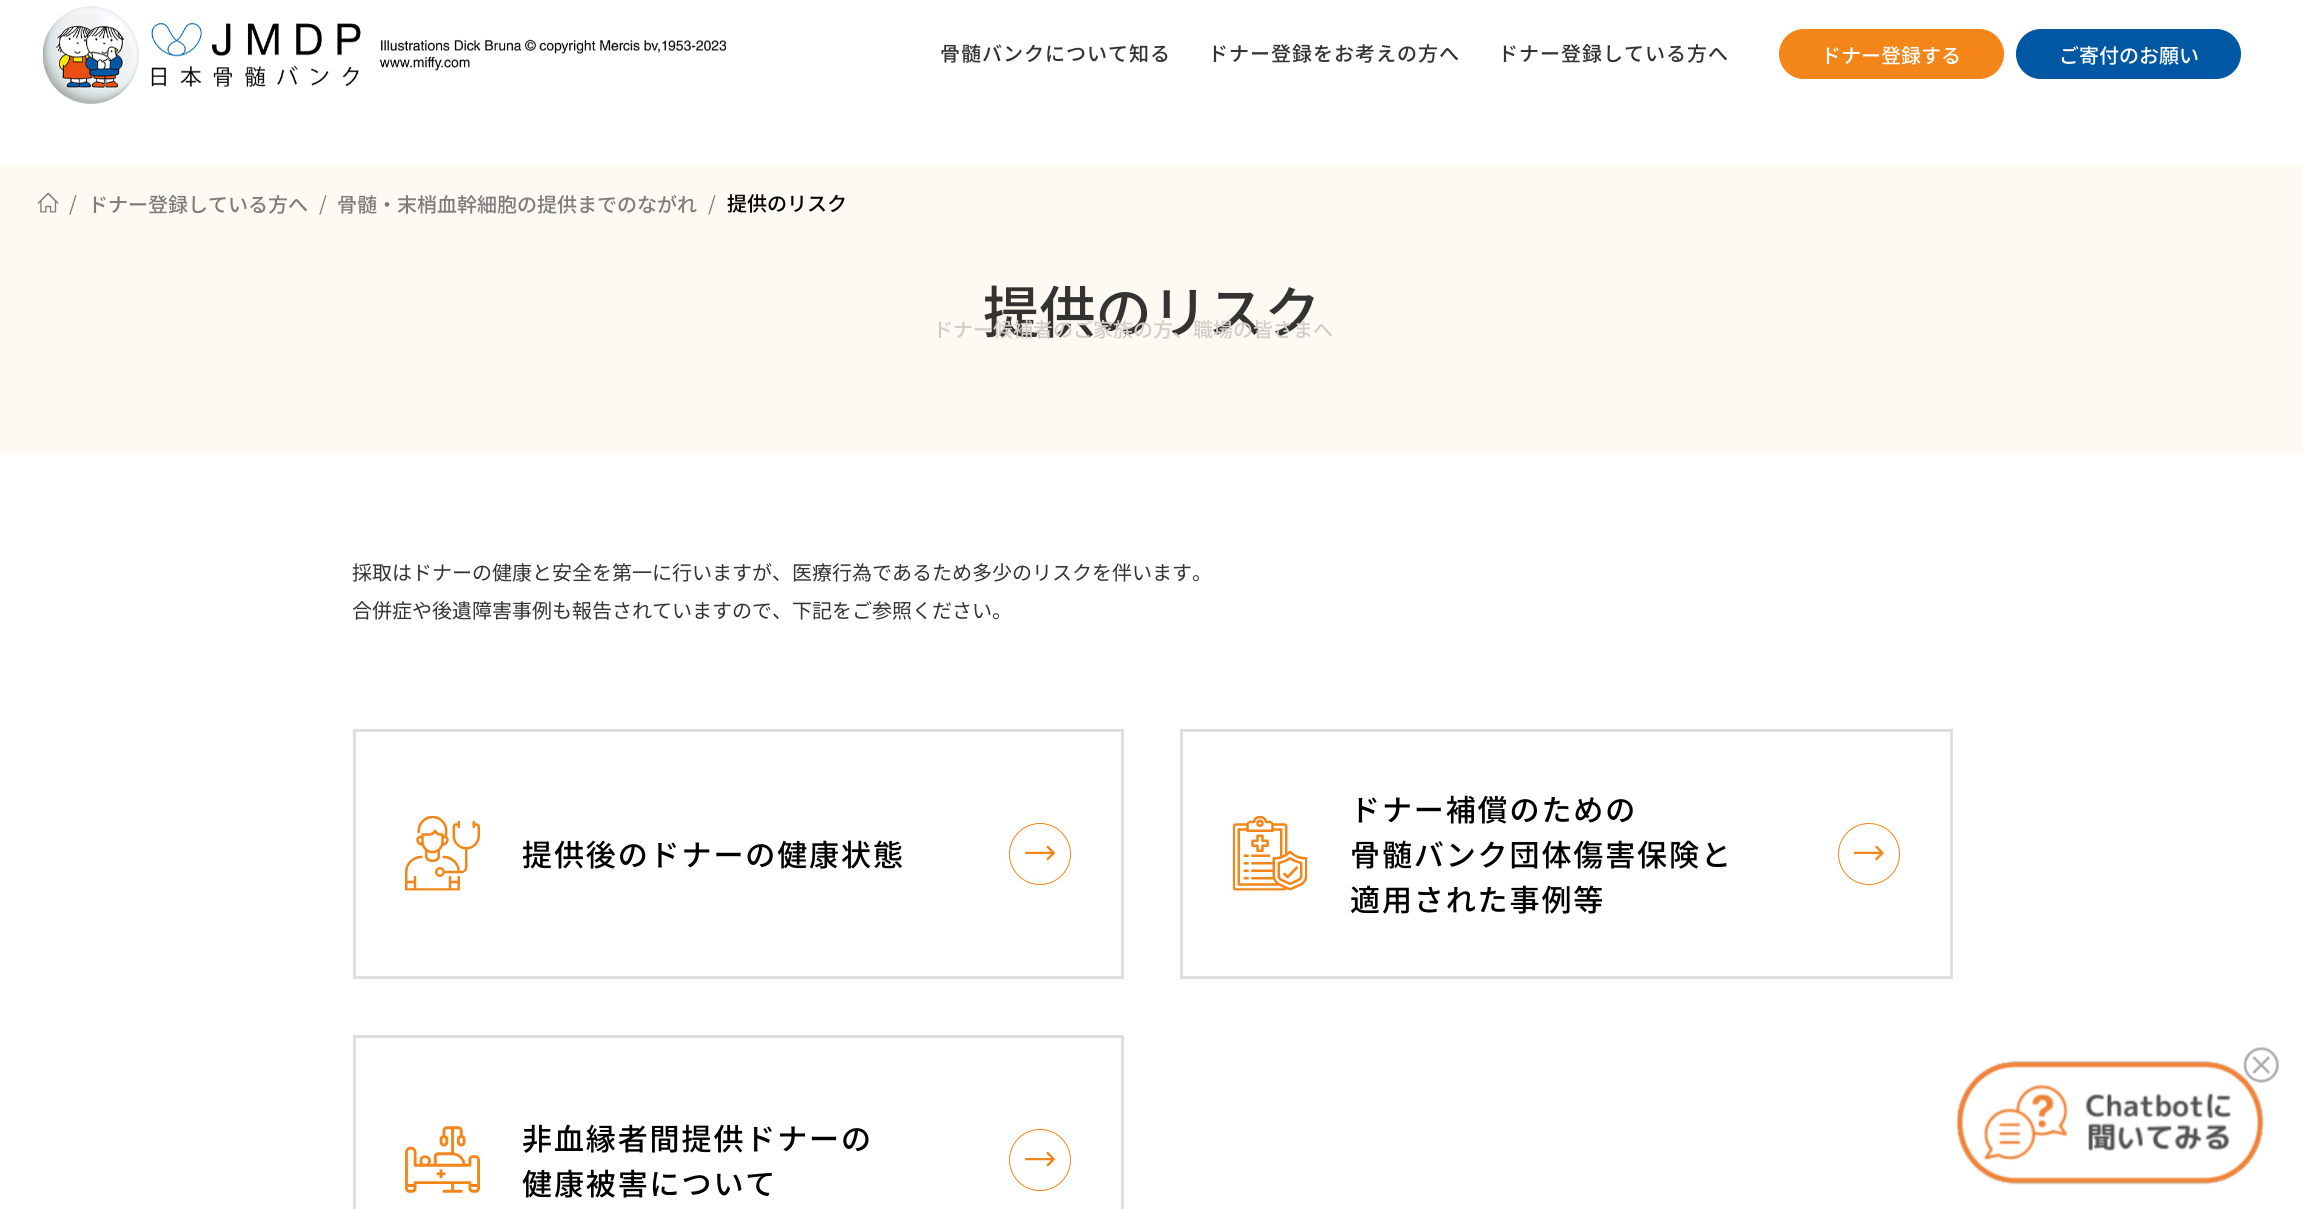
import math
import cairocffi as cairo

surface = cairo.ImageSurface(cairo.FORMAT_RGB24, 2303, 1209)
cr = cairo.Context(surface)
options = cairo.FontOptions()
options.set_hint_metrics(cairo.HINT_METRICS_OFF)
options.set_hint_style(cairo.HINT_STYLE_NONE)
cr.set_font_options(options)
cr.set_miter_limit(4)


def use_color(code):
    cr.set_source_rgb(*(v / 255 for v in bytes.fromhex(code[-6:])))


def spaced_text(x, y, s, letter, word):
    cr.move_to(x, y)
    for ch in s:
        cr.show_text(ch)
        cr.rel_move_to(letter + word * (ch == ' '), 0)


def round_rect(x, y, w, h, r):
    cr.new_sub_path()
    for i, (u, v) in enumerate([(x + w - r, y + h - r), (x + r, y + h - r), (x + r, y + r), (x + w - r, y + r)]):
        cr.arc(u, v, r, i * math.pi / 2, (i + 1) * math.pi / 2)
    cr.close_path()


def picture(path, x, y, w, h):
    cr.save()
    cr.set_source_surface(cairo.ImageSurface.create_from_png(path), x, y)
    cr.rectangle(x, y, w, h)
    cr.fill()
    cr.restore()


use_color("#ffffff")
cr.paint()
picture("img1.png", 43, 6, 683, 98)
cr.select_font_face("Noto Sans JP Medium")
cr.set_font_size(20)
use_color("#333333")
spaced_text(1498, 61, "ドナー登録している方へ", 1, 0)
use_color("#fff9f3")
cr.rectangle(0, 165, 2303, 288)
cr.fill()
cr.set_font_size(56.25)
use_color("#333333")
cr.move_to(983, 333)
cr.show_text("提供のリスク")
cr.set_font_size(20)
use_color("#d2cdc9")
cr.move_to(933, 337)
cr.show_text("ドナー候補者のご家族の方、職場の皆さまへ")
use_color("#333333")
spaced_text(940, 61, "骨髄バンクについて知る", 1, 0)
spaced_text(1208, 61, "ドナー登録をお考えの方へ", 1, 0)
use_color("#f48518")
round_rect(1779.5, 29.5, 224, 49, 24.5)
cr.fill_preserve()
cr.set_line_width(1)
cr.stroke()
use_color("#ffffff")
cr.move_to(1821, 63)
cr.show_text("ドナー登録する")
use_color("#0057a3")
round_rect(2016.5, 29.5, 224, 49, 24.5)
cr.fill_preserve()
cr.stroke()
use_color("#ffffff")
cr.move_to(2059, 63)
cr.show_text("ご寄付のお願い")
picture("img2.png", 37, 192, 22, 21)
cr.select_font_face("Noto Sans JP")
use_color("#7d7d7d")
cr.move_to(69, 211)
cr.show_text("/")
cr.select_font_face("Noto Sans JP Medium")
cr.move_to(88, 212)
cr.show_text("ドナー登録している方へ")
cr.select_font_face("Noto Sans JP")
cr.move_to(319, 211)
cr.show_text("/")
cr.select_font_face("Noto Sans JP Medium")
cr.move_to(337, 212)
cr.show_text("骨髄・末梢血幹細胞の提供までのながれ")
cr.select_font_face("Noto Sans JP")
cr.move_to(708, 211)
cr.show_text("/")
cr.select_font_face("Noto Sans JP Medium")
use_color("#000000")
cr.move_to(727, 211)
cr.show_text("提供のリスク")
cr.select_font_face("Noto Sans JP")
use_color("#333333")
cr.move_to(352, 580)
cr.show_text("採取はドナーの健康と安全を第一に行いますが、医療行為であるため多少のリスクを伴います。")
cr.move_to(352, 618)
cr.show_text("合併症や後遺障害事例も報告されていますので、下記をご参照ください。")
cr.rectangle(354.5, 730.5, 768, 247)
use_color("#dfdfdf")
cr.set_line_width(3)
cr.stroke()
picture("img3.png", 405, 816, 75, 75)
cr.select_font_face("Noto Sans JP Medium")
cr.set_font_size(30)
use_color("#000000")
spaced_text(522, 866, "提供後のドナーの健康状態", 1.9, 0)
cr.new_path()
cr.arc(1040, 854, 30.5, 0, 2 * math.pi)
use_color("#f48518")
cr.set_line_width(1)
cr.stroke()
picture("img4.png", 1025, 845, 30, 16)
cr.rectangle(1181.5, 730.5, 770, 247)
use_color("#dfdfdf")
cr.set_line_width(3)
cr.stroke()
picture("img5.png", 1232, 816, 76, 75)
use_color("#000000")
spaced_text(1350, 821, "ドナー補償のための", 1.9, 0)
spaced_text(1350, 866, "骨髄バンク団体傷害保険と", 1.9, 0)
spaced_text(1350, 911, "適用された事例等", 1.9, 0)
cr.new_path()
cr.arc(1869, 854, 30.5, 0, 2 * math.pi)
use_color("#f48518")
cr.set_line_width(1)
cr.stroke()
picture("img6.png", 1854, 845, 30, 16)
cr.rectangle(354.5, 1036.5, 768, 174)
use_color("#dfdfdf")
cr.set_line_width(3)
cr.stroke()
picture("img7.png", 405, 1126, 75, 67)
use_color("#000000")
spaced_text(522, 1150, "非血縁者間提供ドナーの", 1.9, 0)
spaced_text(522, 1195, "健康被害について", 1.9, 0)
cr.new_path()
cr.arc(1040, 1160, 30.5, 0, 2 * math.pi)
use_color("#f48518")
cr.set_line_width(1)
cr.stroke()
picture("img8.png", 1025, 1152, 30, 15)
picture("img9.png", 1956, 1047, 323, 138)
surface.write_to_png("result.png")
